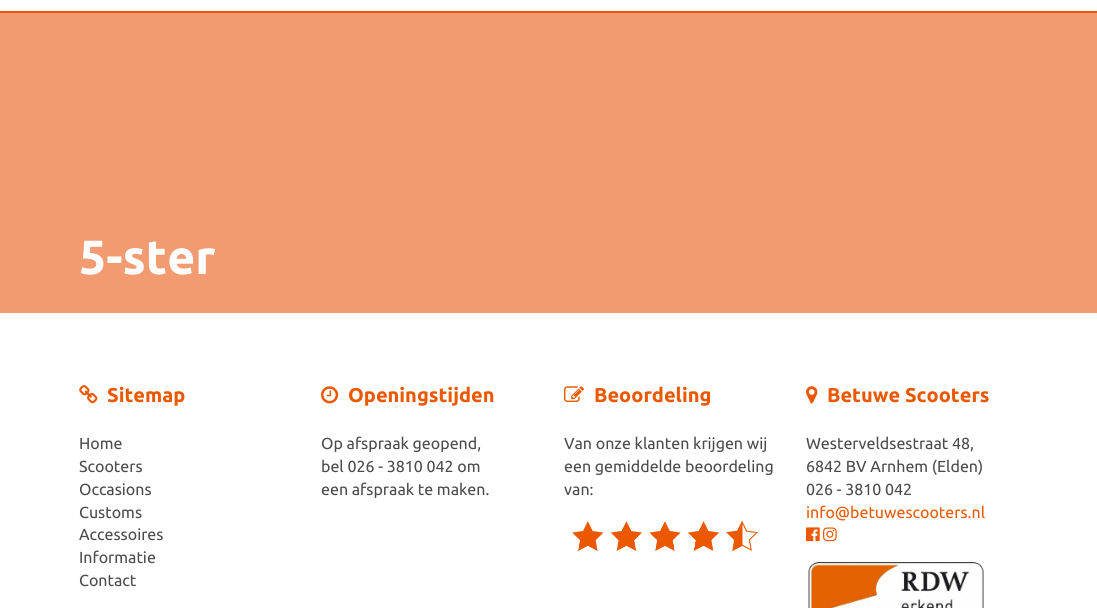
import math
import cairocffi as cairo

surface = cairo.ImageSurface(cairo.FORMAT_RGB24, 1097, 608)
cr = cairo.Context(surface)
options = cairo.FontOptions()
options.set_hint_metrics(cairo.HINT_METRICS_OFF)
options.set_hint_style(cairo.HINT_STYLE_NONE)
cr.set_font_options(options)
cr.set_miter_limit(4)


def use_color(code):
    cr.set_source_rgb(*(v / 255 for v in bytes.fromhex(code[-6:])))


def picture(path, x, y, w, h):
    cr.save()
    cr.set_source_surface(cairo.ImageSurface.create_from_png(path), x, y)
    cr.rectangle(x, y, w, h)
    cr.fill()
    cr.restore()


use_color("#ffffff")
cr.paint()
use_color("#eb5800")
cr.rectangle(0, 11, 1097, 2)
cr.fill()
use_color("#f29a70")
cr.rectangle(0, 13, 1097, 300)
cr.fill()
cr.select_font_face("Ubuntu", cairo.FONT_SLANT_NORMAL, cairo.FONT_WEIGHT_BOLD)
cr.set_font_size(48)
use_color("#ffffff")
cr.move_to(79, 274)
cr.show_text("5-ster")
picture("img1.png", 79, 385, 19, 19)
cr.set_font_size(20)
use_color("#eb5800")
cr.move_to(107, 402)
cr.show_text("Sitemap")
cr.select_font_face("Ubuntu")
cr.set_font_size(16)
use_color("#4b4b4d")
cr.move_to(79, 449)
cr.show_text("Home")
cr.move_to(79, 472)
cr.show_text("Scooters")
cr.move_to(79, 495)
cr.show_text("Occasions")
cr.move_to(79, 518)
cr.show_text("Customs")
cr.move_to(79, 540)
cr.show_text("Accessoires")
cr.move_to(79, 563)
cr.show_text("Informatie")
cr.move_to(79, 586)
cr.show_text("Contact")
picture("img2.png", 321, 386, 18, 18)
cr.select_font_face("Ubuntu", cairo.FONT_SLANT_NORMAL, cairo.FONT_WEIGHT_BOLD)
cr.set_font_size(20)
use_color("#eb5800")
cr.move_to(348, 402)
cr.show_text("Openingstijden")
cr.select_font_face("Ubuntu")
cr.set_font_size(16)
use_color("#4b4b4d")
cr.move_to(321, 449)
cr.show_text("Op afspraak geopend,")
cr.move_to(321, 472)
cr.show_text("bel 026 - 3810 042 om")
cr.move_to(321, 495)
cr.show_text("een afspraak te maken.")
picture("img3.png", 564, 386, 20, 16)
cr.select_font_face("Ubuntu", cairo.FONT_SLANT_NORMAL, cairo.FONT_WEIGHT_BOLD)
cr.set_font_size(20)
use_color("#eb5800")
cr.move_to(594, 402)
cr.show_text("Beoordeling")
cr.select_font_face("Ubuntu")
cr.set_font_size(16)
use_color("#4b4b4d")
cr.move_to(564, 449)
cr.show_text("Van onze klanten krijgen wij")
cr.move_to(564, 472)
cr.show_text("een gemiddelde beoordeling")
cr.move_to(564, 495)
cr.show_text("van:")
picture("img4.png", 572, 520, 186, 31)
picture("img5.png", 806, 386, 12, 18)
cr.select_font_face("Ubuntu", cairo.FONT_SLANT_NORMAL, cairo.FONT_WEIGHT_BOLD)
cr.set_font_size(20)
use_color("#eb5800")
cr.move_to(827, 402)
cr.show_text("Betuwe Scooters")
cr.select_font_face("Ubuntu")
cr.set_font_size(16)
use_color("#4b4b4d")
cr.move_to(806, 449)
cr.show_text("Westerveldsestraat 48,")
cr.move_to(806, 472)
cr.show_text("6842 BV Arnhem (Elden)")
cr.move_to(806, 495)
cr.show_text("026 - 3810 042")
use_color("#eb5800")
cr.move_to(806, 518)
cr.show_text("info@betuwescooters.nl")
picture("img6.png", 806, 527, 14, 15)
picture("img7.png", 823, 527, 14, 15)
picture("img8.png", 808, 562, 176, 46)
surface.write_to_png("result.png")
